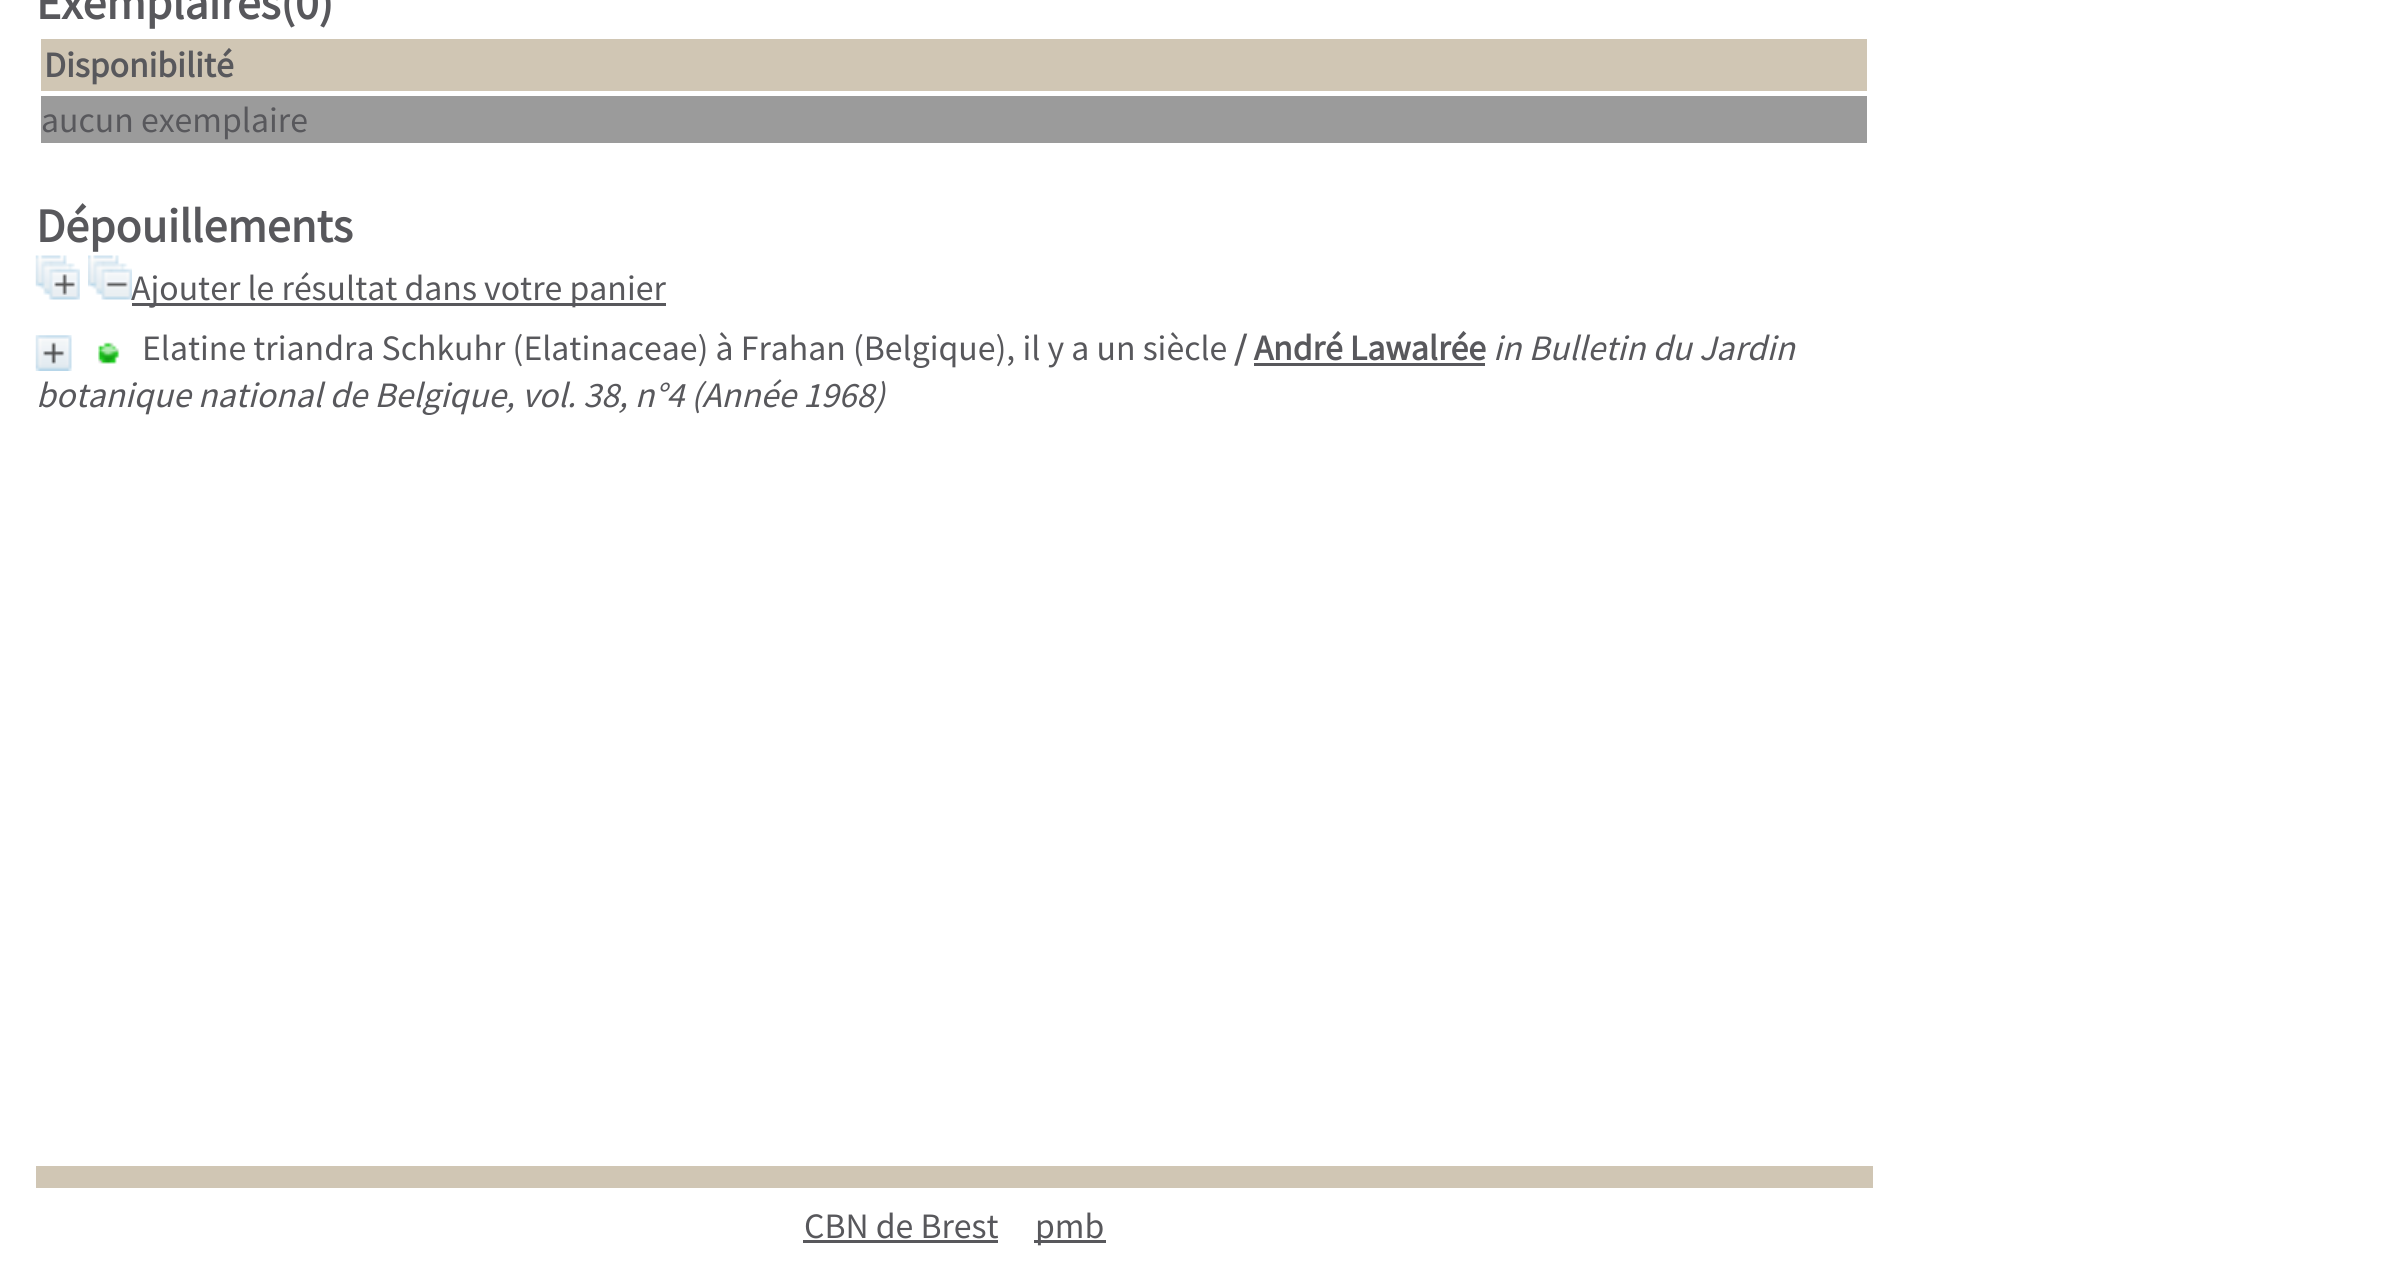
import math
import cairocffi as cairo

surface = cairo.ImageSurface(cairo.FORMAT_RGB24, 2385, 1261)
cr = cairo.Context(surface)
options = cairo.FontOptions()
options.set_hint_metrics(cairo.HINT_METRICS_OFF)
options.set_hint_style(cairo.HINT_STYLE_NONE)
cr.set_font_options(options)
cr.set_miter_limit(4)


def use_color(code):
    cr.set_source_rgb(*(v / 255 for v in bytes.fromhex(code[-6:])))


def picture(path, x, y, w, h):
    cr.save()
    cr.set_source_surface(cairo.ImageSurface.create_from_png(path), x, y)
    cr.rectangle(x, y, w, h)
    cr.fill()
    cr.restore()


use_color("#ffffff")
cr.paint()
cr.select_font_face("Source Sans Pro", cairo.FONT_SLANT_NORMAL, cairo.FONT_WEIGHT_BOLD)
cr.set_font_size(47.75)
use_color("#58585c")
cr.move_to(36, 19)
cr.show_text("Exemplaires(0)")
use_color("#d0c6b4")
cr.rectangle(41, 39, 1826, 52)
cr.fill()
cr.set_font_size(35.75)
use_color("#58585c")
cr.move_to(44, 77)
cr.show_text("Disponibilité")
use_color("#9b9b9b")
cr.rectangle(41, 96, 1826, 47)
cr.fill()
cr.select_font_face("Source Sans Pro")
use_color("#58585c")
cr.move_to(41, 132)
cr.show_text("aucun exemplaire")
cr.select_font_face("Source Sans Pro", cairo.FONT_SLANT_NORMAL, cairo.FONT_WEIGHT_BOLD)
cr.set_font_size(47.75)
cr.move_to(36, 242)
cr.show_text("Dépouillements")
picture("img1.png", 35, 255, 45, 45)
picture("img2.png", 88, 255, 44, 45)
cr.rectangle(132, 303, 534, 3)
cr.fill()
cr.select_font_face("Source Sans Pro")
cr.set_font_size(35.75)
cr.move_to(131, 300)
cr.show_text("Ajouter le résultat dans votre panier")
picture("img3.png", 35, 335, 37, 36)
picture("img4.png", 98, 342, 22, 22)
cr.move_to(142, 360)
cr.show_text("Elatine triandra Schkuhr (Elatinaceae) à Frahan (Belgique), il y a un siècle")
cr.select_font_face("Source Sans Pro", cairo.FONT_SLANT_NORMAL, cairo.FONT_WEIGHT_BOLD)
cr.move_to(1234, 360)
cr.show_text("/ André Lawalrée")
cr.rectangle(1254, 363, 231, 3)
cr.fill()
cr.select_font_face("Source Sans Pro", cairo.FONT_SLANT_ITALIC)
cr.move_to(1493, 360)
cr.show_text("in Bulletin du Jardin")
cr.move_to(36, 407)
cr.show_text("botanique national de Belgique, vol. 38, n°4 (Année 1968)")
use_color("#d0c6b4")
cr.rectangle(36, 1166, 1837, 22)
cr.fill()
cr.select_font_face("Source Sans Pro")
use_color("#58585c")
cr.move_to(804, 1238)
cr.show_text("CBN de Brest")
cr.rectangle(803, 1240, 195, 3)
cr.fill()
cr.rectangle(1034, 1240, 72, 3)
cr.fill()
cr.move_to(1035, 1238)
cr.show_text("pmb")
surface.write_to_png("result.png")
